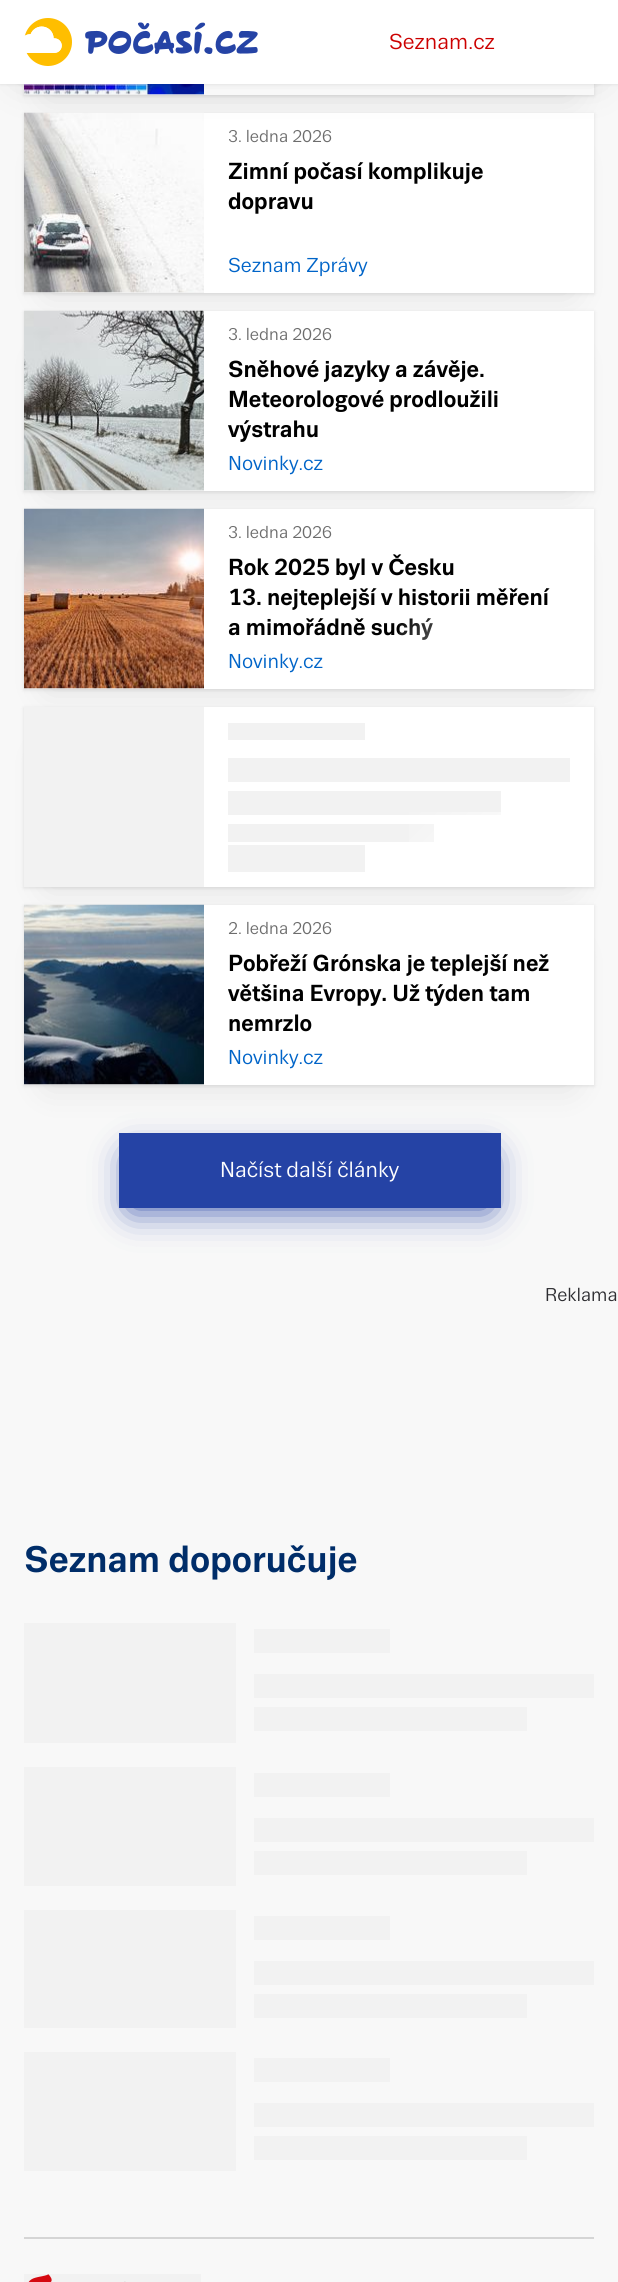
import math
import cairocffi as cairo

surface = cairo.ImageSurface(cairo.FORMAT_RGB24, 618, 2282)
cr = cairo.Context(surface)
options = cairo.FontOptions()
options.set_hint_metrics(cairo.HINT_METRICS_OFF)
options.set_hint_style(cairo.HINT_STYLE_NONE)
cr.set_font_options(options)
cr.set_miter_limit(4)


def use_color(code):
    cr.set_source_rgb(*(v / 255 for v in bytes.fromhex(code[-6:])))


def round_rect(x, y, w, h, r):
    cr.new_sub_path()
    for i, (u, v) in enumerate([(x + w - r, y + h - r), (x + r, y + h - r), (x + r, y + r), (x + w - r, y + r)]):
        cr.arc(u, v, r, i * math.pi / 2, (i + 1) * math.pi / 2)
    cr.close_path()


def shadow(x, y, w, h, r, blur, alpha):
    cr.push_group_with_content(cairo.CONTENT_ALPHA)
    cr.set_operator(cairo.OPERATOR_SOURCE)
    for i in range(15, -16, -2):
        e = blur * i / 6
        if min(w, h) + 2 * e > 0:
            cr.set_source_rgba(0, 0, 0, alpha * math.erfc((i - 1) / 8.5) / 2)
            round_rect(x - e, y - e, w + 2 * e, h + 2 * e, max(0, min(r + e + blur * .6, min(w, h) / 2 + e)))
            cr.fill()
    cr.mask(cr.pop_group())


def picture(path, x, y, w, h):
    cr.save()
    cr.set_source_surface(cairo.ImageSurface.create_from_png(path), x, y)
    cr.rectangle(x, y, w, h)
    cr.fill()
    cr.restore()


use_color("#f8f8f8")
cr.paint()
use_color("#000000")
shadow(48, -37, 522, 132, 0, 18, 0.1)
shadow(24, -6, 570, 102, 0, 2, 0.1)
use_color("#ffffff")
cr.rectangle(204, 84, 390, 11)
cr.fill()
use_color("#f2f2f2")
cr.rectangle(24, 94, 180, 1)
cr.fill()
picture("img2.png", 24, 84, 180, 11)
use_color("#000000")
shadow(48, 161, 522, 132, 0, 18, 0.1)
shadow(24, 114, 570, 180, 0, 2, 0.1)
use_color("#ffffff")
cr.rectangle(204, 113, 390, 180)
cr.fill()
use_color("#f2f2f2")
cr.rectangle(24, 292, 180, 1)
cr.fill()
picture("img3.png", 24, 112, 180, 181)
use_color("#000000")
shadow(18, 30, 582, 48, 0, 22.5, 0.12)
shadow(0, 0, 618, 84, 0, 1.5, 0.1)
use_color("#ffffff")
cr.rectangle(0, 0, 618, 84)
cr.fill()
picture("img1.png", 24, 18, 234, 48)
cr.select_font_face("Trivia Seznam")
cr.set_font_size(21)
use_color("#cc0000")
cr.move_to(389, 49)
cr.show_text("Seznam.cz")
cr.set_font_size(16.5)
use_color("#6d6d6d")
cr.move_to(228, 142)
cr.show_text("3. ledna 2026")
cr.select_font_face("Trivia Seznam", cairo.FONT_SLANT_NORMAL, cairo.FONT_WEIGHT_BOLD)
cr.set_font_size(22.5)
use_color("#000000")
cr.move_to(228, 179)
cr.show_text("Zimní počasí komplikuje")
cr.move_to(228, 209)
cr.show_text("dopravu")
cr.select_font_face("Trivia Seznam")
cr.set_font_size(19.5)
use_color("#0064c8")
cr.move_to(228, 272)
cr.show_text("Seznam Zprávy")
use_color("#000000")
shadow(48, 359, 522, 132, 0, 18, 0.1)
shadow(24, 312, 570, 180, 0, 2, 0.1)
use_color("#ffffff")
cr.rectangle(204, 311, 390, 180)
cr.fill()
use_color("#f2f2f2")
cr.rectangle(24, 490, 180, 1)
cr.fill()
picture("img4.png", 24, 310, 180, 181)
cr.set_font_size(16.5)
use_color("#6d6d6d")
cr.move_to(228, 340)
cr.show_text("3. ledna 2026")
cr.select_font_face("Trivia Seznam", cairo.FONT_SLANT_NORMAL, cairo.FONT_WEIGHT_BOLD)
cr.set_font_size(22.5)
use_color("#000000")
cr.move_to(228, 377)
cr.show_text("Sněhové jazyky a závěje.")
cr.move_to(228, 407)
cr.show_text("Meteorologové prodloužili")
cr.move_to(228, 437)
cr.show_text("výstrahu")
cr.select_font_face("Trivia Seznam")
cr.set_font_size(19.5)
use_color("#0064c8")
cr.move_to(228, 470)
cr.show_text("Novinky.cz")
use_color("#000000")
shadow(48, 557, 522, 132, 0, 18, 0.1)
shadow(24, 510, 570, 180, 0, 2, 0.1)
use_color("#ffffff")
cr.rectangle(204, 509, 390, 180)
cr.fill()
use_color("#f2f2f2")
cr.rectangle(24, 688, 180, 1)
cr.fill()
picture("img5.png", 24, 508, 180, 181)
cr.set_font_size(16.5)
use_color("#6d6d6d")
cr.move_to(228, 538)
cr.show_text("3. ledna 2026")
cr.select_font_face("Trivia Seznam", cairo.FONT_SLANT_NORMAL, cairo.FONT_WEIGHT_BOLD)
cr.set_font_size(22.5)
use_color("#000000")
cr.move_to(228, 575)
cr.show_text("Rok 2025 byl v Česku")
cr.move_to(228, 605)
cr.show_text("13. nejteplejší v historii měření")
cr.move_to(228, 635)
cr.show_text("a mimořádně suchý")
gradient = cairo.LinearGradient(434, 578, 535, 679)
gradient.add_color_stop_rgba(0, 1, 1, 1, 0)
gradient.add_color_stop_rgba(1, 1, 1, 1, 1)
cr.set_source(gradient)
cr.rectangle(399, 618, 34, 22)
cr.fill()
cr.select_font_face("Trivia Seznam")
cr.set_font_size(19.5)
use_color("#0064c8")
cr.move_to(228, 668)
cr.show_text("Novinky.cz")
use_color("#000000")
shadow(48, 755, 522, 132, 0, 18, 0.1)
shadow(24, 708, 570, 180, 0, 2, 0.1)
use_color("#ffffff")
cr.rectangle(204, 707, 390, 180)
cr.fill()
use_color("#f2f2f2")
cr.rectangle(24, 707, 180, 180)
cr.fill()
cr.rectangle(228, 723, 137, 17)
cr.fill()
cr.rectangle(228, 758, 342, 24)
cr.fill()
cr.rectangle(228, 791, 273, 24)
cr.fill()
cr.rectangle(228, 824, 206, 18)
cr.fill()
gradient = cairo.LinearGradient(434, 776, 535, 877)
gradient.add_color_stop_rgba(0, 1, 1, 1, 0)
gradient.add_color_stop_rgba(1, 1, 1, 1, 1)
cr.set_source(gradient)
cr.rectangle(409, 812, 92, 30)
cr.fill()
use_color("#f2f2f2")
cr.rectangle(228, 845, 137, 27)
cr.fill()
use_color("#000000")
shadow(48, 953, 522, 132, 0, 18, 0.1)
shadow(24, 906, 570, 180, 0, 2, 0.1)
use_color("#ffffff")
cr.rectangle(204, 905, 390, 180)
cr.fill()
use_color("#f2f2f2")
cr.rectangle(24, 1084, 180, 1)
cr.fill()
picture("img6.png", 24, 904, 180, 181)
cr.set_font_size(16.5)
use_color("#6d6d6d")
cr.move_to(228, 934)
cr.show_text("2. ledna 2026")
cr.select_font_face("Trivia Seznam", cairo.FONT_SLANT_NORMAL, cairo.FONT_WEIGHT_BOLD)
cr.set_font_size(22.5)
use_color("#000000")
cr.move_to(228, 971)
cr.show_text("Pobřeží Grónska je teplejší než")
cr.move_to(228, 1001)
cr.show_text("většina Evropy. Už týden tam")
cr.move_to(228, 1031)
cr.show_text("nemrzlo")
cr.select_font_face("Trivia Seznam")
cr.set_font_size(19.5)
use_color("#0064c8")
cr.move_to(228, 1064)
cr.show_text("Novinky.cz")
use_color("#2543a5")
shadow(131, 1157, 358, 51, 0, 18, 1)
use_color("#2543a5")
cr.rectangle(119, 1133, 382, 75)
cr.fill()
cr.set_font_size(21)
use_color("#ffffff")
cr.move_to(220, 1177)
cr.show_text("Načíst další články")
cr.set_font_size(18)
use_color("#2d2d31")
cr.move_to(545, 1301)
cr.show_text("Reklama")
cr.select_font_face("Trivia Seznam", cairo.FONT_SLANT_NORMAL, cairo.FONT_WEIGHT_BOLD)
cr.set_font_size(36)
use_color("#002d69")
cr.move_to(24, 1572)
cr.show_text("Seznam doporučuje")
use_color("#f2f2f2")
cr.rectangle(24, 1623, 212, 120)
cr.fill()
cr.rectangle(254, 1629, 136, 24)
cr.fill()
cr.rectangle(254, 1674, 340, 24)
cr.fill()
cr.rectangle(254, 1707, 273, 24)
cr.fill()
cr.rectangle(24, 1767, 212, 119)
cr.fill()
cr.rectangle(254, 1773, 136, 24)
cr.fill()
cr.rectangle(254, 1818, 340, 24)
cr.fill()
cr.rectangle(254, 1851, 273, 24)
cr.fill()
cr.rectangle(24, 1910, 212, 118)
cr.fill()
cr.rectangle(254, 1916, 136, 24)
cr.fill()
cr.rectangle(254, 1961, 340, 24)
cr.fill()
cr.rectangle(254, 1994, 273, 24)
cr.fill()
cr.rectangle(24, 2052, 212, 119)
cr.fill()
cr.rectangle(254, 2058, 136, 24)
cr.fill()
cr.rectangle(254, 2103, 340, 24)
cr.fill()
cr.rectangle(254, 2136, 273, 24)
cr.fill()
use_color("#d5d5d5")
cr.rectangle(24, 2237, 570, 2)
cr.fill()
use_color("#f2f2f2")
cr.rectangle(24, 2274, 177, 8)
cr.fill()
picture("img7.png", 28, 2274, 98, 8)
surface.write_to_png("result.png")
